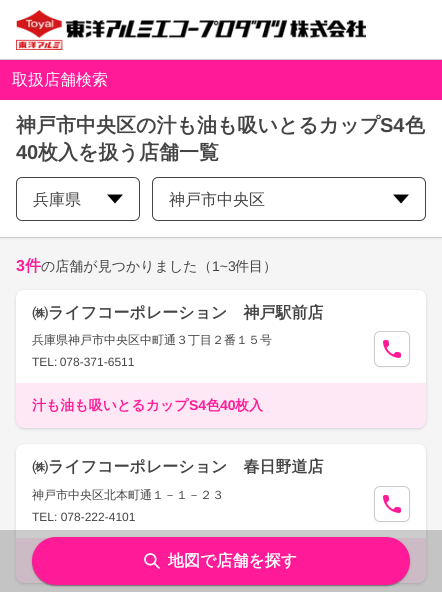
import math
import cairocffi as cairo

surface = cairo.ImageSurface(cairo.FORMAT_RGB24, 442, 592)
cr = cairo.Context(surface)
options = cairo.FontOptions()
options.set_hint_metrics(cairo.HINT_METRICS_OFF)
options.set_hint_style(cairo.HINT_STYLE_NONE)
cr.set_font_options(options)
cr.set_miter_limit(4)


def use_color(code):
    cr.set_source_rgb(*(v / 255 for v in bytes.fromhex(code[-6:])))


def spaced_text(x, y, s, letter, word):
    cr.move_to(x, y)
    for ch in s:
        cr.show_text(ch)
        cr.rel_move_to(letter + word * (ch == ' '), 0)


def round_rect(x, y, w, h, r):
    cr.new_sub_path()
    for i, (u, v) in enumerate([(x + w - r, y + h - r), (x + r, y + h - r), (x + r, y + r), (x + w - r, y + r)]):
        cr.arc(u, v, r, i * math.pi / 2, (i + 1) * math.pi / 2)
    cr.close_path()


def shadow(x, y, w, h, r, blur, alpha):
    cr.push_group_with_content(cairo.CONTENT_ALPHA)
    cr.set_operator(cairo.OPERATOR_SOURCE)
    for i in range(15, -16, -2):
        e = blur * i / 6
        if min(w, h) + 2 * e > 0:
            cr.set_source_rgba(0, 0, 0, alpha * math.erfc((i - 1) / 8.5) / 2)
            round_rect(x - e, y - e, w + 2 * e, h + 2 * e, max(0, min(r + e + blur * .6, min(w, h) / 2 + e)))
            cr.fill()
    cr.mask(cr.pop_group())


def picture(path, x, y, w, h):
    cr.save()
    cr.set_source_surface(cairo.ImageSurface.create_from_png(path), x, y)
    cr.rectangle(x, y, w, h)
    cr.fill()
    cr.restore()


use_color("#ffffff")
cr.paint()
use_color("#cccccc")
cr.rectangle(0, 59, 442, 1)
cr.fill()
picture("img1.png", 16, 10, 350, 40)
use_color("#f5f5f5")
cr.rectangle(0, 238, 442, 354)
cr.fill()
use_color("#ff1a98")
cr.rectangle(0, 60, 442, 40)
cr.fill()
cr.select_font_face("WenQuanYi Zen Hei Medium")
cr.set_font_size(16)
use_color("#ffffff")
cr.move_to(12, 85)
cr.show_text("取扱店舗検索")
cr.select_font_face("WenQuanYi Zen Hei", cairo.FONT_SLANT_NORMAL, cairo.FONT_WEIGHT_BOLD)
cr.set_font_size(20)
use_color("#444444")
cr.move_to(16, 132)
cr.show_text("神戸市中央区の汁も油も吸いとるカップ")
cr.select_font_face("Liberation Sans", cairo.FONT_SLANT_NORMAL, cairo.FONT_WEIGHT_BOLD)
cr.move_to(380, 132)
cr.show_text("S4")
cr.select_font_face("WenQuanYi Zen Hei", cairo.FONT_SLANT_NORMAL, cairo.FONT_WEIGHT_BOLD)
cr.move_to(405, 132)
cr.show_text("色")
cr.select_font_face("Liberation Sans", cairo.FONT_SLANT_NORMAL, cairo.FONT_WEIGHT_BOLD)
cr.move_to(16, 159)
cr.show_text("40")
cr.select_font_face("WenQuanYi Zen Hei", cairo.FONT_SLANT_NORMAL, cairo.FONT_WEIGHT_BOLD)
cr.move_to(38, 159)
cr.show_text("枚入を扱う店舗一覧")
use_color("#000000")
shadow(0, 178, 442, 61, 0, 1, 0.05)
use_color("#ffffff")
cr.rectangle(0, 177, 442, 60)
cr.fill()
use_color("#cccccc")
cr.rectangle(0, 237, 442, 1)
cr.fill()
round_rect(16.5, 177.5, 123, 43, 5.5)
use_color("#444444")
cr.set_line_width(1)
cr.stroke()
cr.select_font_face("WenQuanYi Zen Hei Medium")
cr.set_font_size(16)
cr.move_to(33, 205)
cr.show_text("兵庫県")
use_color("#000000")
cr.new_path()
cr.move_to(115, 203.5)
cr.line_to(107, 194.5)
cr.line_to(123, 194.5)
cr.close_path()
cr.fill()
round_rect(152.5, 177.5, 273, 43, 5.5)
use_color("#444444")
cr.stroke()
cr.move_to(169, 205)
cr.show_text("神戸市中央区")
use_color("#000000")
cr.new_path()
cr.move_to(401, 203.5)
cr.line_to(393, 194.5)
cr.line_to(409, 194.5)
cr.close_path()
cr.fill()
cr.select_font_face("Liberation Sans", cairo.FONT_SLANT_NORMAL, cairo.FONT_WEIGHT_BOLD)
use_color("#ff1a98")
cr.move_to(16, 271)
cr.show_text("3")
cr.select_font_face("WenQuanYi Zen Hei", cairo.FONT_SLANT_NORMAL, cairo.FONT_WEIGHT_BOLD)
cr.move_to(25, 271)
cr.show_text("件")
cr.select_font_face("WenQuanYi Zen Hei Medium")
cr.set_font_size(14)
use_color("#444444")
cr.move_to(41, 271)
cr.show_text("の店舗が見つかりました（")
cr.select_font_face("Liberation Sans")
cr.move_to(212, 271)
cr.show_text("1~3")
cr.select_font_face("WenQuanYi Zen Hei Medium")
cr.move_to(235, 271)
cr.show_text("件目）")
use_color("#000000")
shadow(16, 291, 410, 138, 8, 1.5, 0.15)
use_color("#ffffff")
round_rect(16, 290, 410, 138, 8)
cr.fill()
cr.select_font_face("WenQuanYi Zen Hei", cairo.FONT_SLANT_NORMAL, cairo.FONT_WEIGHT_BOLD)
cr.set_font_size(16)
use_color("#444444")
cr.move_to(32, 318)
cr.show_text("㈱ライフコーポレーション　神戸駅前店")
cr.select_font_face("WenQuanYi Zen Hei Medium")
cr.set_font_size(12)
cr.move_to(32, 344)
cr.show_text("兵庫県神戸市中央区中町通３丁目２番１５号")
cr.select_font_face("Liberation Sans")
spaced_text(32, 366, "TEL: 078-371-6511", 0, -1)
use_color("#000000")
shadow(374, 332, 36, 36, 6, 1, 0.05)
use_color("#ffffff")
round_rect(374.5, 331.5, 35, 35, 5.5)
cr.fill_preserve()
use_color("#cccccc")
cr.stroke()
picture("img2.png", 383, 340, 18, 18)
cr.set_source_rgba(1, 0.102, 0.596, 0.1)
cr.new_path()
cr.move_to(16, 383)
cr.line_to(426, 383)
cr.line_to(426, 420)
cr.curve_to(426, 424.5, 422.5, 428, 418, 428)
cr.line_to(24, 428)
cr.curve_to(19.5, 428, 16, 424.5, 16, 420)
cr.close_path()
cr.fill()
cr.select_font_face("WenQuanYi Zen Hei", cairo.FONT_SLANT_NORMAL, cairo.FONT_WEIGHT_BOLD)
cr.set_font_size(14)
use_color("#ff1a98")
cr.move_to(32, 410)
cr.show_text("汁も油も吸いとるカップ")
cr.select_font_face("Liberation Sans", cairo.FONT_SLANT_NORMAL, cairo.FONT_WEIGHT_BOLD)
cr.move_to(189, 410)
cr.show_text("S4")
cr.select_font_face("WenQuanYi Zen Hei", cairo.FONT_SLANT_NORMAL, cairo.FONT_WEIGHT_BOLD)
cr.move_to(206, 410)
cr.show_text("色")
cr.select_font_face("Liberation Sans", cairo.FONT_SLANT_NORMAL, cairo.FONT_WEIGHT_BOLD)
cr.move_to(220, 410)
cr.show_text("40")
cr.select_font_face("WenQuanYi Zen Hei", cairo.FONT_SLANT_NORMAL, cairo.FONT_WEIGHT_BOLD)
cr.move_to(235, 410)
cr.show_text("枚入")
use_color("#000000")
shadow(16, 445, 410, 139, 8, 1.5, 0.15)
use_color("#ffffff")
round_rect(16, 444, 410, 139, 8)
cr.fill()
cr.set_font_size(16)
use_color("#444444")
cr.move_to(32, 472)
cr.show_text("㈱ライフコーポレーション　春日野道店")
cr.select_font_face("WenQuanYi Zen Hei Medium")
cr.set_font_size(12)
cr.move_to(32, 499)
cr.show_text("神戸市中央区北本町通１－１－２３")
cr.select_font_face("Liberation Sans")
cr.move_to(32, 521)
cr.show_text("TEL: 078-222-4101")
use_color("#000000")
shadow(374, 487, 36, 36, 6, 1, 0.05)
use_color("#ffffff")
round_rect(374.5, 486.5, 35, 35, 5.5)
cr.fill_preserve()
use_color("#cccccc")
cr.stroke()
picture("img2.png", 383, 495, 18, 18)
cr.set_source_rgba(1, 0.102, 0.596, 0.1)
cr.new_path()
cr.move_to(16, 538)
cr.line_to(426, 538)
cr.line_to(426, 575)
cr.curve_to(426, 579.5, 422.5, 583, 418, 583)
cr.line_to(24, 583)
cr.curve_to(19.5, 583, 16, 579.5, 16, 575)
cr.close_path()
cr.fill()
cr.set_source_rgba(0, 0, 0, 0.2)
cr.rectangle(0, 530, 442, 62)
cr.fill()
use_color("#000000")
shadow(32, 538, 378, 48, 24, 1.5, 0.12)
shadow(32, 538, 378, 48, 24, 0.5, 0.14)
shadow(33, 540, 376, 46, 23, 0.5, 0.2)
use_color("#ff1a98")
round_rect(32, 537, 378, 48, 24)
cr.fill()
picture("img3.png", 144, 553, 16, 16)
cr.select_font_face("WenQuanYi Zen Hei", cairo.FONT_SLANT_NORMAL, cairo.FONT_WEIGHT_BOLD)
cr.set_font_size(16)
use_color("#ffffff")
cr.move_to(168, 566)
cr.show_text("地図で店舗を探す")
surface.write_to_png("result.png")
